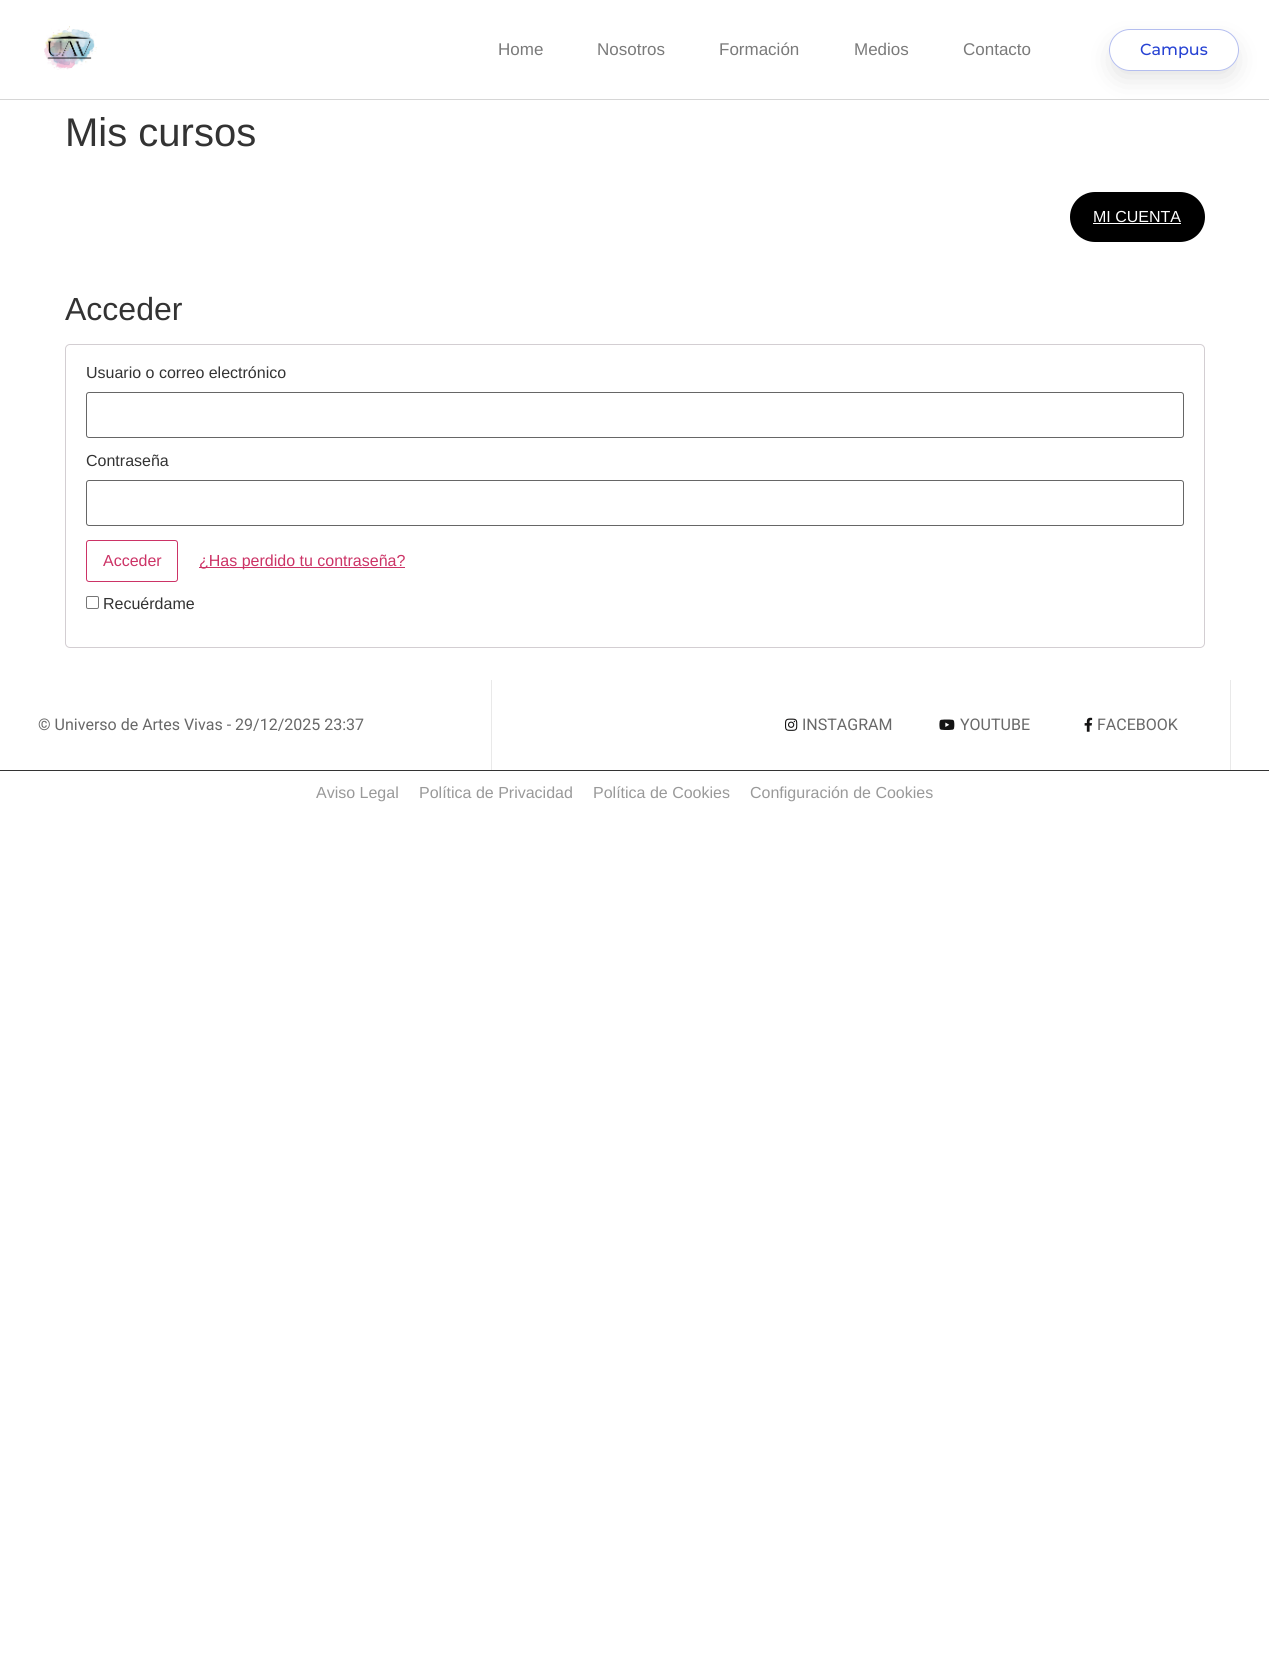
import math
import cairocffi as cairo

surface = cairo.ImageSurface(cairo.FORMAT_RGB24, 1269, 1670)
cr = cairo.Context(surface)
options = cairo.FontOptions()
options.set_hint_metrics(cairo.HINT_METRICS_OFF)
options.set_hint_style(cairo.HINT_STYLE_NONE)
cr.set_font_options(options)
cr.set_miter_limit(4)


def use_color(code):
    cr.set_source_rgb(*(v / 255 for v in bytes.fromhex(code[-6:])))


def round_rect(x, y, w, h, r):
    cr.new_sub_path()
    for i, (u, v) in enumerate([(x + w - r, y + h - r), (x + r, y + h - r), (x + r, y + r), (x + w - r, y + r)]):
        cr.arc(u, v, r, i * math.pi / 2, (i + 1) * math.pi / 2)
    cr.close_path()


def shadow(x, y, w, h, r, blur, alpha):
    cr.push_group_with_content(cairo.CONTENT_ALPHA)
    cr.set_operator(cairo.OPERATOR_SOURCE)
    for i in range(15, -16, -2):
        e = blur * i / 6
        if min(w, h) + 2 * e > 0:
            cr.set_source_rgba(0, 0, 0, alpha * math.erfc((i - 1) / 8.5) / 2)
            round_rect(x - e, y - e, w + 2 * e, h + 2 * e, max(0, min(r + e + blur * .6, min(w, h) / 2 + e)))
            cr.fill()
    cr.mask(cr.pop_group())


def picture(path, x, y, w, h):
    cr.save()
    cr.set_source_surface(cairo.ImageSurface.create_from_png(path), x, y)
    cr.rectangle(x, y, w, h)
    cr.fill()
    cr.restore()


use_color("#ffffff")
cr.paint()
use_color("#d6d6d6")
cr.rectangle(0, 99, 1269, 1)
cr.fill()
picture("img1.png", 44, 26, 53, 44)
cr.select_font_face("Liberation Sans")
cr.set_font_size(17)
use_color("#7a7a7a")
cr.move_to(498, 55)
cr.show_text("Home")
cr.move_to(597, 55)
cr.show_text("Nosotros")
cr.move_to(719, 55)
cr.show_text("Formación")
cr.move_to(854, 55)
cr.show_text("Medios")
cr.move_to(963, 55)
cr.show_text("Contacto")
cr.save()
cr.set_fill_rule(cairo.FILL_RULE_EVEN_ODD)
cr.new_path()
cr.move_to(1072, 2)
cr.line_to(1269, 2)
cr.line_to(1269, 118)
cr.line_to(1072, 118)
cr.close_path()
cr.move_to(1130, 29)
cr.line_to(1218, 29)
cr.curve_to(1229.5, 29, 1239, 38.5, 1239, 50)
cr.curve_to(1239, 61.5, 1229.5, 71, 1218, 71)
cr.line_to(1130, 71)
cr.curve_to(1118.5, 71, 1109, 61.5, 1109, 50)
cr.curve_to(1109, 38.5, 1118.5, 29, 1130, 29)
cr.close_path()
cr.clip()
use_color("#000000")
shadow(1118, 48, 112, 24, 12, 15, 0.16)
cr.restore()
round_rect(1109.5, 29.5, 129, 41, 20.5)
cr.set_source_rgba(0.149, 0.259, 0.827, 0.34)
cr.set_line_width(1)
cr.stroke()
cr.select_font_face("Montserrat Medium")
cr.set_font_size(16)
use_color("#2642d3")
cr.move_to(1140, 55)
cr.show_text("Campus")
cr.select_font_face("Liberation Sans")
cr.set_font_size(40)
use_color("#333333")
cr.move_to(65, 146)
cr.show_text("Mis cursos")
use_color("#000000")
round_rect(1070, 192, 135, 50, 25)
cr.fill()
cr.set_font_size(16)
use_color("#ffffff")
cr.move_to(1093, 222)
cr.show_text("MI CUENTA")
cr.rectangle(1093, 223, 88, 1)
cr.fill()
cr.set_font_size(32)
use_color("#333333")
cr.move_to(65, 320)
cr.show_text("Acceder")
round_rect(65.5, 344.5, 1139, 303, 4.5)
use_color("#d3ced2")
cr.stroke()
cr.set_font_size(16)
use_color("#333333")
cr.move_to(86, 378)
cr.show_text("Usuario o correo electrónico")
round_rect(86.5, 392.5, 1097, 45, 2.5)
use_color("#666666")
cr.stroke()
use_color("#333333")
cr.move_to(86, 466)
cr.show_text("Contraseña")
round_rect(86.5, 480.5, 1097, 45, 2.5)
use_color("#666666")
cr.stroke()
round_rect(86.5, 540.5, 91, 41, 2.5)
use_color("#cc3366")
cr.stroke()
cr.move_to(103, 566)
cr.show_text("Acceder")
cr.rectangle(199, 567, 206, 1)
cr.fill()
cr.move_to(199, 566)
cr.show_text("¿Has perdido tu contraseña?")
round_rect(86.5, 596.5, 12, 12, 1.5)
use_color("#767676")
cr.stroke()
use_color("#333333")
cr.move_to(103, 609)
cr.show_text("Recuérdame")
cr.rectangle(0, 770, 1269, 1)
cr.fill()
cr.select_font_face("Roboto")
use_color("#686868")
cr.move_to(38, 730)
cr.show_text("© Universo de Artes Vivas - 29/12/2025 23:37")
use_color("#e9e9e9")
cr.rectangle(1230, 680, 1, 90)
cr.fill()
cr.rectangle(491, 680, 1, 90)
cr.fill()
picture("img2.png", 785, 718, 13, 13)
use_color("#686868")
cr.move_to(802, 730)
cr.show_text("INSTAGRAM")
picture("img3.png", 939, 719, 16, 11)
cr.move_to(960, 730)
cr.show_text("YOUTUBE")
picture("img4.png", 1084, 717, 9, 15)
cr.move_to(1097, 730)
cr.show_text("FACEBOOK")
cr.select_font_face("Liberation Sans")
use_color("#999999")
cr.move_to(316, 798)
cr.show_text("Aviso Legal")
cr.move_to(419, 798)
cr.show_text("Política de Privacidad")
cr.move_to(593, 798)
cr.show_text("Política de Cookies")
cr.move_to(750, 798)
cr.show_text("Configuración de Cookies")
surface.write_to_png("result.png")
